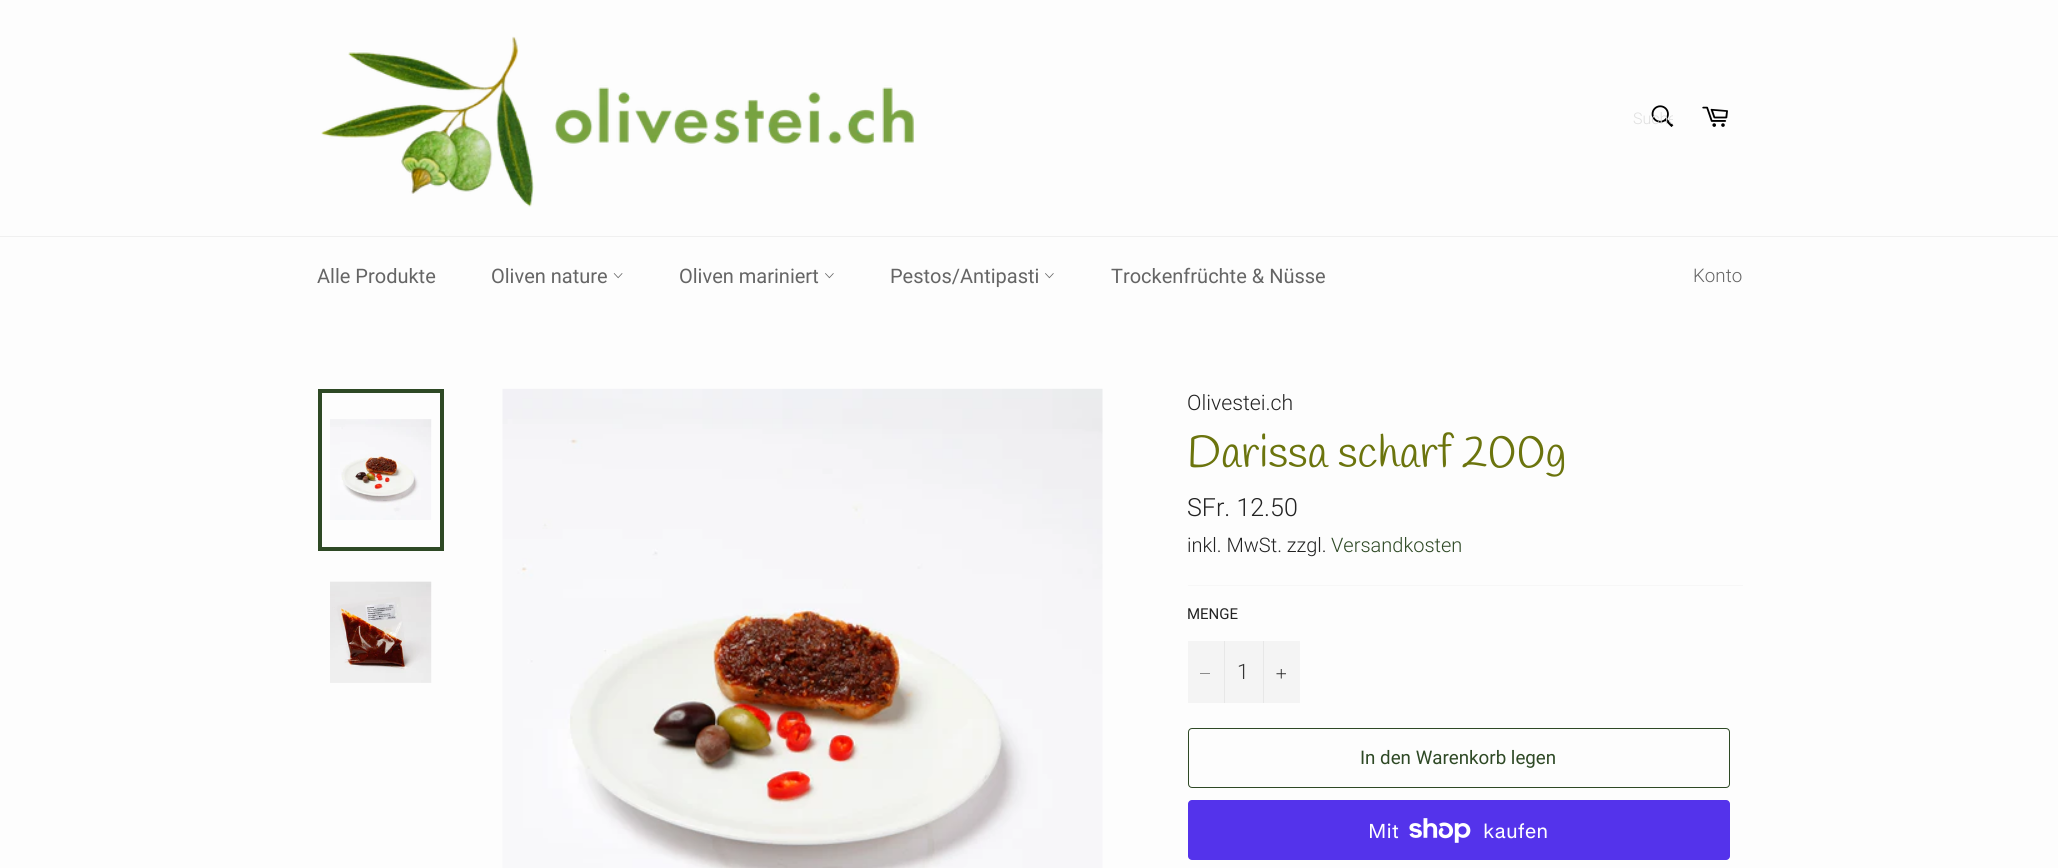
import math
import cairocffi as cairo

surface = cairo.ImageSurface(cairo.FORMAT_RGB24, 2058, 868)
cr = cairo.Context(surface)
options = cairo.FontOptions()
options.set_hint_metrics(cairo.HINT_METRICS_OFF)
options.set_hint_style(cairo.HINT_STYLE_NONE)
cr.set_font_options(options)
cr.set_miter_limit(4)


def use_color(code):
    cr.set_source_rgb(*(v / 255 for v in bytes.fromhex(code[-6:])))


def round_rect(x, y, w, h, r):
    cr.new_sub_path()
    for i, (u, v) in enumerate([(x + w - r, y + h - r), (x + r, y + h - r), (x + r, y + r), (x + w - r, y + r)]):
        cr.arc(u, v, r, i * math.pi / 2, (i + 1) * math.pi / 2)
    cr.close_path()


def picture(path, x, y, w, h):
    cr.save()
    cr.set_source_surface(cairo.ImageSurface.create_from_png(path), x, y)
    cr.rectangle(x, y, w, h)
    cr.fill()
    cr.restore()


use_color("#fdfdfd")
cr.paint()
picture("img1.png", 321, 36, 593, 171)
picture("img2.png", 1651, 105, 23, 22)
cr.save()
cr.rectangle(1633, 109, 40, 19)
cr.clip()
cr.select_font_face("Roboto Light")
cr.set_font_size(16)
use_color("#dfdfdf")
cr.move_to(1633, 124)
cr.show_text("Suche")
cr.restore()
picture("img3.png", 1702, 106, 26, 21)
use_color("#f0f0f0")
cr.rectangle(0, 236, 2058, 1)
cr.fill()
cr.select_font_face("Roboto")
cr.set_font_size(20)
use_color("#656565")
cr.move_to(317, 283)
cr.show_text("Alle Produkte")
cr.move_to(491, 283)
cr.show_text("Oliven nature")
picture("img4.png", 613, 273, 10, 6)
cr.move_to(679, 283)
cr.show_text("Oliven mariniert")
picture("img5.png", 825, 273, 9, 6)
cr.move_to(890, 283)
cr.show_text("Pestos/Antipasti")
picture("img5.png", 1045, 273, 9, 6)
cr.move_to(1111, 283)
cr.show_text("Trockenfrüchte & Nüsse")
cr.select_font_face("Roboto Light")
cr.set_font_size(18.75)
cr.move_to(1693, 282)
cr.show_text("Konto")
picture("img6.png", 330, 419, 102, 101)
cr.rectangle(320, 391, 122, 158)
use_color("#2e4925")
cr.set_line_width(4)
cr.stroke()
picture("img7.png", 330, 581, 102, 102)
picture("img8.png", 502, 388, 601, 480)
cr.set_font_size(21.25)
use_color("#232323")
cr.move_to(1187, 410)
cr.show_text("Olivestei.ch")
cr.select_font_face("Handlee")
cr.set_font_size(45)
use_color("#6b740d")
cr.move_to(1187, 467)
cr.show_text("Darissa scharf 200g")
cr.select_font_face("Roboto Light")
cr.set_font_size(25)
use_color("#232323")
cr.move_to(1187, 516)
cr.show_text("SFr. 12.50")
cr.set_font_size(20)
cr.move_to(1187, 552)
cr.show_text("inkl. MwSt. zzgl.")
use_color("#2e4925")
cr.move_to(1331, 552)
cr.show_text("Versandkosten")
use_color("#f7f7f7")
cr.rectangle(1188, 585, 555, 1)
cr.fill()
cr.select_font_face("Roboto")
cr.set_font_size(15)
use_color("#232323")
cr.move_to(1187, 619)
cr.show_text("MENGE")
use_color("#f4f4f4")
cr.rectangle(1188, 641, 112, 62)
cr.fill()
use_color("#e7e7e7")
cr.rectangle(1224, 641, 1, 62)
cr.fill()
use_color("#232323")
cr.set_fill_rule(cairo.FILL_RULE_EVEN_ODD)
cr.new_path()
cr.move_to(1210, 673.5)
cr.line_to(1210, 674)
cr.line_to(1200, 674)
cr.line_to(1200, 673.5)
cr.close_path()
cr.fill()
cr.select_font_face("Roboto Light")
cr.set_font_size(21.25)
use_color("#333333")
cr.move_to(1237, 679)
cr.show_text("1")
use_color("#e7e7e7")
cr.rectangle(1263, 641, 1, 62)
cr.fill()
picture("img9.png", 1276, 669, 10, 10)
round_rect(1188.5, 728.5, 541, 59, 3.5)
use_color("#2e4925")
cr.set_line_width(1)
cr.stroke()
cr.select_font_face("Roboto")
cr.set_font_size(18.75)
cr.move_to(1360, 764)
cr.show_text("In den Warenkorb legen")
use_color("#5433eb")
round_rect(1188, 800, 542, 60, 4)
cr.fill()
cr.select_font_face("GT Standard")
cr.set_font_size(20)
use_color("#ffffff")
cr.move_to(1368, 838)
cr.show_text("Mit")
picture("img10.png", 1409, 818, 62, 25)
cr.move_to(1483, 838)
cr.show_text("kaufen")
surface.write_to_png("result.png")
